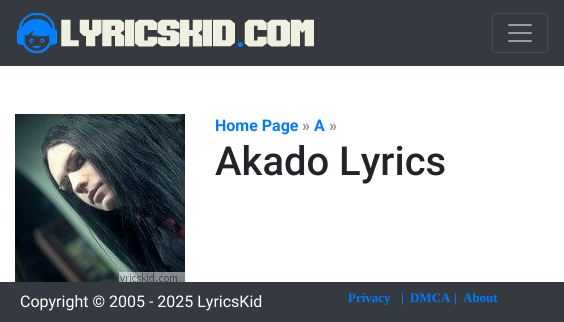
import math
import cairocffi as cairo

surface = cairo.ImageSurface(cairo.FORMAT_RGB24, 564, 322)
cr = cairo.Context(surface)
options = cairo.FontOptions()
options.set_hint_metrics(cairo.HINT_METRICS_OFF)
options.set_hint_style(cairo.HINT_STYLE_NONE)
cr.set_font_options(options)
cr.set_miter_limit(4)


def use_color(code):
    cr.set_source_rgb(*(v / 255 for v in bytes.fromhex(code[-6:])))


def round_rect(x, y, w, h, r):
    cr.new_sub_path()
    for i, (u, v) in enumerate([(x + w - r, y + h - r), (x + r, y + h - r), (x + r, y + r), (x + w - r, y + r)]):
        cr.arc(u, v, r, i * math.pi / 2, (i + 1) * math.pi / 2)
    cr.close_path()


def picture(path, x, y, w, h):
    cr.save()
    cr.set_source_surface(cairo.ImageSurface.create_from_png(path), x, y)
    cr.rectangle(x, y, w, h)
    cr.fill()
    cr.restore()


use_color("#ffffff")
cr.paint()
use_color("#343a40")
cr.rectangle(0, 0, 564, 66)
cr.fill()
picture("img1.png", 17, 13, 297, 40)
round_rect(492.5, 13.5, 55, 39, 3.5)
use_color("#484e53")
cr.set_line_width(1)
cr.stroke()
picture("img2.png", 508, 24, 24, 18)
picture("img3.png", 15, 114, 170, 168)
cr.select_font_face("Roboto", cairo.FONT_SLANT_NORMAL, cairo.FONT_WEIGHT_BOLD)
cr.set_font_size(16)
use_color("#007bff")
cr.move_to(215, 131)
cr.show_text("Home Page")
use_color("#8f8f8f")
cr.move_to(302, 131)
cr.show_text("»")
use_color("#007bff")
cr.move_to(314, 131)
cr.show_text("A")
use_color("#8f8f8f")
cr.move_to(329, 131)
cr.show_text("»")
cr.select_font_face("Roboto Medium")
cr.set_font_size(40)
use_color("#212529")
cr.move_to(215, 175)
cr.show_text("Akado Lyrics")
use_color("#343a40")
cr.rectangle(0, 282, 564, 40)
cr.fill()
cr.select_font_face("Roboto")
cr.set_font_size(16)
use_color("#ffffff")
cr.move_to(20, 307)
cr.show_text("Copyright © 2005 - 2025 LyricsKid")
cr.select_font_face("Liberation Serif", cairo.FONT_SLANT_NORMAL, cairo.FONT_WEIGHT_BOLD)
cr.set_font_size(13)
use_color("#007bff")
cr.move_to(348, 302)
cr.show_text("Privacy")
cr.move_to(401, 302)
cr.show_text("|")
cr.move_to(410, 302)
cr.show_text("DMCA")
cr.move_to(454, 302)
cr.show_text("|")
cr.move_to(463, 302)
cr.show_text("About")
surface.write_to_png("result.png")
